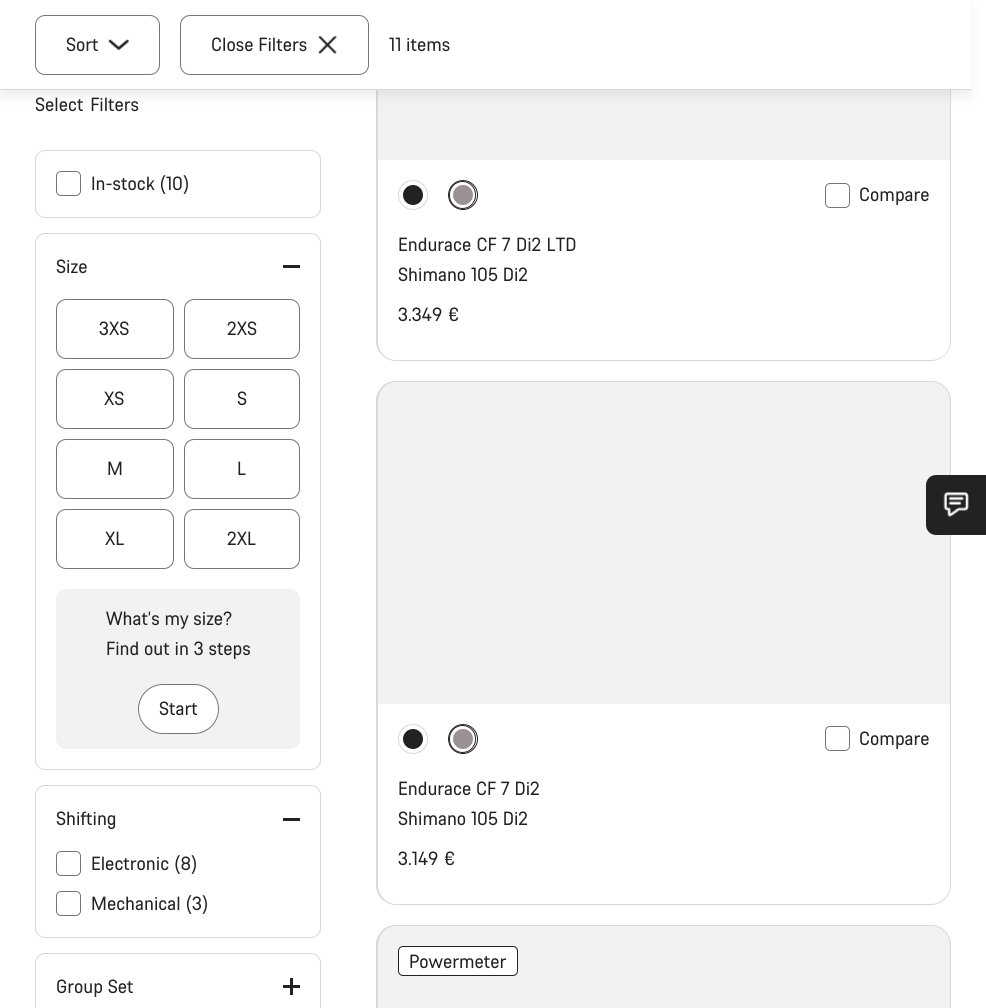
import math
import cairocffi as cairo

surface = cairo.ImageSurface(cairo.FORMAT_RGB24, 986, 1008)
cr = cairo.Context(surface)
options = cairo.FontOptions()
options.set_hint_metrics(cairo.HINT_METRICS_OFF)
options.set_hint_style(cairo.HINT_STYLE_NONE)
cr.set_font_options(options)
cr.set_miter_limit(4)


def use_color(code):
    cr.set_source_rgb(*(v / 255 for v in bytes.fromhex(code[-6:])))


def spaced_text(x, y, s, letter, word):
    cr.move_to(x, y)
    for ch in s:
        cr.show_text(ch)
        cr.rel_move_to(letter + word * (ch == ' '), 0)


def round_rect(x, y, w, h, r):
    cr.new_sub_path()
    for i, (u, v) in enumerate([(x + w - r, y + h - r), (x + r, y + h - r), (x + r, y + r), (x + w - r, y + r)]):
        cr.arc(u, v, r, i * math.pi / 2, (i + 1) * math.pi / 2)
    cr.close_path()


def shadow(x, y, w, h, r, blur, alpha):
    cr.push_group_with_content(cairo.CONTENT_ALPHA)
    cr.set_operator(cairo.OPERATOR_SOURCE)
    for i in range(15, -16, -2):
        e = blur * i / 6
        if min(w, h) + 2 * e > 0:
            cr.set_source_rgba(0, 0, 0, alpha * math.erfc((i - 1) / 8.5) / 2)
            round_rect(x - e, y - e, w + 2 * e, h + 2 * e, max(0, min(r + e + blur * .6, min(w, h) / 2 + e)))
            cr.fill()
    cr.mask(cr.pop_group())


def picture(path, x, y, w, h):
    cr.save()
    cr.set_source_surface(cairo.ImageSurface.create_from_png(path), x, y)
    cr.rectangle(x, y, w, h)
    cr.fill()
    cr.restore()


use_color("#ffffff")
cr.paint()
use_color("#f2f2f2")
cr.rectangle(378, 90, 572, 70)
cr.fill()
use_color("#d8d8d8")
cr.set_fill_rule(cairo.FILL_RULE_EVEN_ODD)
cr.new_path()
cr.move_to(396, -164)
cr.line_to(931, -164)
cr.curve_to(942, -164, 951, -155, 951, -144)
cr.line_to(951, 160)
cr.line_to(376, 160)
cr.line_to(376, -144)
cr.curve_to(376, -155, 385, -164, 396, -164)
cr.close_path()
cr.move_to(396, -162)
cr.line_to(931, -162)
cr.curve_to(942, -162, 950, -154, 950, -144)
cr.line_to(950, 160)
cr.line_to(378, 160)
cr.line_to(378, -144)
cr.curve_to(378, -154, 386, -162, 396, -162)
cr.close_path()
cr.fill()
use_color("#5b6871")
shadow(0, 8, 971, 90, 0, 5, 0.1)
use_color("#ffffff")
cr.rectangle(0, 0, 971, 89)
cr.fill()
use_color("#d8d8d8")
cr.rectangle(0, 89, 971, 1)
cr.fill()
round_rect(35.5, 15.5, 124, 59, 9.5)
use_color("#767676")
cr.set_line_width(1)
cr.stroke()
cr.select_font_face("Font")
cr.set_font_size(20)
use_color("#222222")
cr.move_to(66, 51)
cr.show_text("Sort")
picture("img1.png", 108, 39, 21, 11)
round_rect(180.5, 15.5, 188, 59, 9.5)
use_color("#767676")
cr.stroke()
use_color("#222222")
cr.move_to(211, 51)
cr.show_text("Close Filters")
picture("img2.png", 318, 35, 19, 19)
cr.move_to(389, 51)
cr.show_text("11 items")
spaced_text(35, 111, "Select Filters", 0, 2)
round_rect(35.5, 150.5, 285, 67, 9.5)
use_color("#d8d8d8")
cr.stroke()
round_rect(56.5, 171.5, 24, 24, 4.5)
use_color("#767676")
cr.stroke()
use_color("#222222")
cr.move_to(91, 190)
cr.show_text("In-stock (10)")
round_rect(35.5, 233.5, 285, 536, 9.5)
use_color("#d8d8d8")
cr.stroke()
use_color("#222222")
cr.move_to(56, 273)
cr.show_text("Size")
cr.rectangle(283, 265, 17, 3)
cr.fill()
round_rect(56.5, 299.5, 117, 59, 9.5)
use_color("#767676")
cr.stroke()
use_color("#222222")
cr.move_to(99, 335)
cr.show_text("3XS")
round_rect(184.5, 299.5, 115, 59, 9.5)
use_color("#767676")
cr.stroke()
use_color("#222222")
cr.move_to(227, 335)
cr.show_text("2XS")
round_rect(56.5, 369.5, 117, 59, 9.5)
use_color("#767676")
cr.stroke()
use_color("#222222")
cr.move_to(104, 405)
cr.show_text("XS")
round_rect(184.5, 369.5, 115, 59, 9.5)
use_color("#767676")
cr.stroke()
use_color("#222222")
cr.move_to(237, 405)
cr.show_text("S")
round_rect(56.5, 439.5, 117, 59, 9.5)
use_color("#767676")
cr.stroke()
use_color("#222222")
cr.move_to(107, 475)
cr.show_text("M")
round_rect(184.5, 439.5, 115, 59, 9.5)
use_color("#767676")
cr.stroke()
use_color("#222222")
cr.move_to(237, 475)
cr.show_text("L")
round_rect(56.5, 509.5, 117, 59, 9.5)
use_color("#767676")
cr.stroke()
use_color("#222222")
cr.move_to(105, 545)
cr.show_text("XL")
round_rect(184.5, 509.5, 115, 59, 9.5)
use_color("#767676")
cr.stroke()
use_color("#222222")
cr.move_to(227, 545)
cr.show_text("2XL")
use_color("#f2f2f2")
round_rect(56, 589, 244, 160, 10)
cr.fill()
use_color("#222222")
cr.move_to(106, 625)
cr.show_text("What’s my size?")
cr.move_to(106, 655)
cr.show_text("Find out in 3 steps")
use_color("#ffffff")
round_rect(138.5, 684.5, 80, 49, 24.5)
cr.fill_preserve()
use_color("#767676")
cr.stroke()
use_color("#222222")
cr.move_to(159, 715)
cr.show_text("Start")
round_rect(35.5, 785.5, 285, 152, 9.5)
use_color("#d8d8d8")
cr.stroke()
use_color("#222222")
cr.move_to(56, 825)
cr.show_text("Shifting")
cr.rectangle(283, 818, 17, 3)
cr.fill()
round_rect(56.5, 851.5, 24, 24, 4.5)
use_color("#767676")
cr.stroke()
use_color("#222222")
cr.move_to(91, 870)
cr.show_text("Electronic (8)")
round_rect(56.5, 891.5, 24, 24, 4.5)
use_color("#767676")
cr.stroke()
use_color("#222222")
cr.move_to(91, 910)
cr.show_text("Mechanical (3)")
round_rect(35.5, 953.5, 285, 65, 9.5)
use_color("#d8d8d8")
cr.stroke()
use_color("#222222")
cr.move_to(56, 993)
cr.show_text("Group Set")
cr.rectangle(283, 985, 17, 3)
cr.fill()
cr.rectangle(290, 978, 3, 17)
cr.fill()
use_color("#d8d8d8")
cr.new_path()
cr.move_to(376, 160)
cr.line_to(951, 160)
cr.line_to(951, 341)
cr.curve_to(951, 352, 942, 361, 931, 361)
cr.line_to(396, 361)
cr.curve_to(385, 361, 376, 352, 376, 341)
cr.close_path()
cr.move_to(378, 160)
cr.line_to(950, 160)
cr.line_to(950, 341)
cr.curve_to(950, 352, 942, 360, 931, 360)
cr.line_to(396, 360)
cr.curve_to(386, 360, 378, 352, 378, 341)
cr.close_path()
cr.fill()
cr.arc(413, 195, 14.5, 0, 2 * math.pi)
cr.stroke()
use_color("#222222")
cr.arc(413, 195, 10, 0, 2 * math.pi)
cr.fill()
round_rect(449.5, 181.5, 26, 27, 13)
cr.stroke()
cr.arc(463, 195, 14.5, 0, 2 * math.pi)
cr.stroke()
use_color("#999196")
cr.arc(463, 195, 10, 0, 2 * math.pi)
cr.fill()
round_rect(825.5, 183.5, 24, 24, 4.5)
use_color("#767676")
cr.stroke()
use_color("#222222")
cr.move_to(859, 201)
cr.show_text("Compare")
spaced_text(398, 251, "Endurace CF 7 Di2 LTD", 0, 0.5)
cr.move_to(398, 281)
cr.show_text("Shimano 105 Di2")
spaced_text(398, 321, "3.349 €", 0, 1)
use_color("#f2f2f2")
cr.new_path()
cr.move_to(396, 381)
cr.line_to(931, 381)
cr.curve_to(942, 381, 951, 390, 951, 401)
cr.line_to(951, 704)
cr.line_to(376, 704)
cr.line_to(376, 401)
cr.curve_to(376, 390, 385, 381, 396, 381)
cr.close_path()
cr.fill()
use_color("#d8d8d8")
cr.new_path()
cr.move_to(396, 381)
cr.line_to(931, 381)
cr.curve_to(942, 381, 951, 390, 951, 401)
cr.line_to(951, 704)
cr.line_to(376, 704)
cr.line_to(376, 401)
cr.curve_to(376, 390, 385, 381, 396, 381)
cr.close_path()
cr.move_to(396, 382)
cr.line_to(931, 382)
cr.curve_to(942, 382, 950, 391, 950, 401)
cr.line_to(950, 704)
cr.line_to(378, 704)
cr.line_to(378, 401)
cr.curve_to(378, 391, 386, 382, 396, 382)
cr.close_path()
cr.fill()
cr.new_path()
cr.move_to(376, 704)
cr.line_to(951, 704)
cr.line_to(951, 885)
cr.curve_to(951, 896, 942, 905, 931, 905)
cr.line_to(396, 905)
cr.curve_to(385, 905, 376, 896, 376, 885)
cr.close_path()
cr.move_to(378, 704)
cr.line_to(950, 704)
cr.line_to(950, 885)
cr.curve_to(950, 895, 942, 904, 931, 904)
cr.line_to(396, 904)
cr.curve_to(386, 904, 378, 895, 378, 885)
cr.close_path()
cr.fill()
cr.arc(413, 739, 14.5, 0, 2 * math.pi)
cr.stroke()
use_color("#222222")
cr.arc(413, 739, 10, 0, 2 * math.pi)
cr.fill()
round_rect(449.5, 725.5, 26, 27, 13)
cr.stroke()
cr.arc(463, 739, 14.5, 0, 2 * math.pi)
cr.stroke()
use_color("#999196")
cr.arc(463, 739, 10, 0, 2 * math.pi)
cr.fill()
round_rect(825.5, 726.5, 24, 24, 4.5)
use_color("#767676")
cr.stroke()
use_color("#222222")
cr.move_to(859, 745)
cr.show_text("Compare")
cr.move_to(398, 795)
cr.show_text("Endurace CF 7 Di2")
cr.move_to(398, 825)
cr.show_text("Shimano 105 Di2")
spaced_text(398, 865, "3.149 €", 0, 1)
use_color("#f2f2f2")
cr.new_path()
cr.move_to(396, 925)
cr.line_to(931, 925)
cr.curve_to(942, 925, 951, 934, 951, 945)
cr.line_to(951, 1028)
cr.line_to(376, 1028)
cr.line_to(376, 945)
cr.curve_to(376, 934, 385, 925, 396, 925)
cr.close_path()
cr.fill()
use_color("#d8d8d8")
cr.new_path()
cr.move_to(396, 925)
cr.line_to(931, 925)
cr.curve_to(942, 925, 951, 934, 951, 945)
cr.line_to(951, 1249)
cr.line_to(376, 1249)
cr.line_to(376, 945)
cr.curve_to(376, 934, 385, 925, 396, 925)
cr.close_path()
cr.move_to(396, 926)
cr.line_to(931, 926)
cr.curve_to(942, 926, 950, 935, 950, 945)
cr.line_to(950, 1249)
cr.line_to(378, 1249)
cr.line_to(378, 945)
cr.curve_to(378, 935, 386, 926, 396, 926)
cr.close_path()
cr.fill()
use_color("#ffffff")
round_rect(398.5, 946.5, 119, 29, 4.5)
cr.fill_preserve()
use_color("#222222")
cr.stroke()
cr.move_to(409, 968)
cr.show_text("Powermeter")
cr.new_path()
cr.move_to(936, 475)
cr.line_to(986, 475)
cr.line_to(986, 535)
cr.line_to(936, 535)
cr.curve_to(930.5, 535, 926, 530.5, 926, 525)
cr.line_to(926, 485)
cr.curve_to(926, 479.5, 930.5, 475, 936, 475)
cr.close_path()
cr.fill()
picture("img3.png", 943, 492, 26, 25)
surface.write_to_png("result.png")
